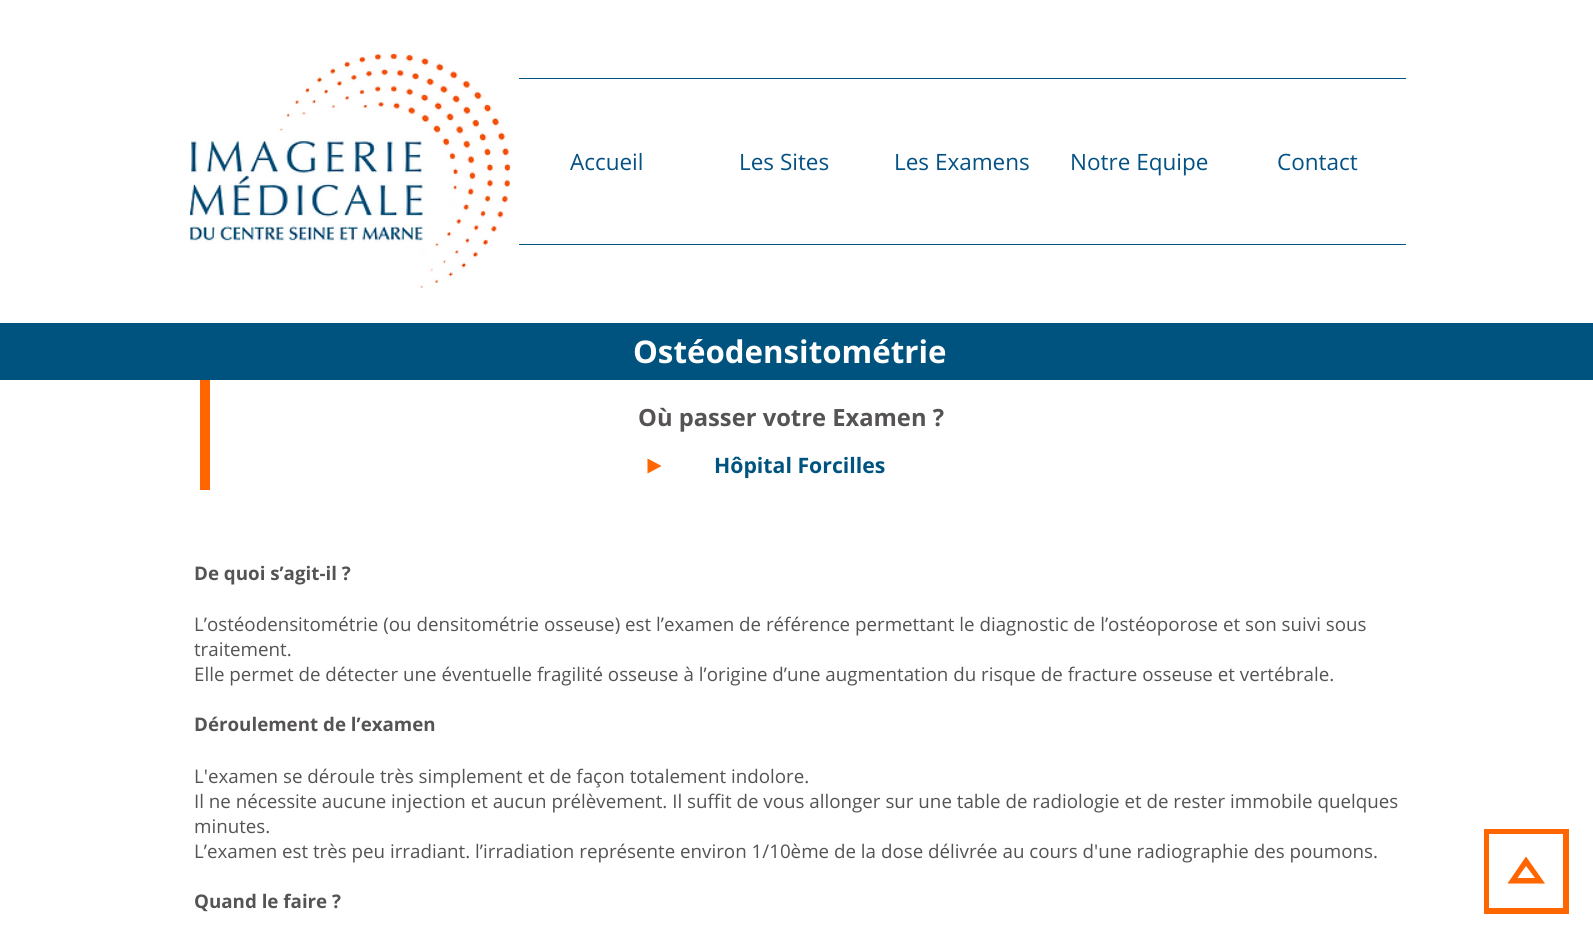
import math
import cairocffi as cairo

surface = cairo.ImageSurface(cairo.FORMAT_RGB24, 1593, 938)
cr = cairo.Context(surface)
options = cairo.FontOptions()
options.set_hint_metrics(cairo.HINT_METRICS_OFF)
options.set_hint_style(cairo.HINT_STYLE_NONE)
cr.set_font_options(options)
cr.set_miter_limit(4)


def use_color(code):
    cr.set_source_rgb(*(v / 255 for v in bytes.fromhex(code[-6:])))


def picture(path, x, y, w, h):
    cr.save()
    cr.set_source_surface(cairo.ImageSurface.create_from_png(path), x, y)
    cr.rectangle(x, y, w, h)
    cr.fill()
    cr.restore()


use_color("#ffffff")
cr.paint()
picture("img1.png", 190, 53, 320, 235)
use_color("#00537e")
cr.rectangle(519, 78, 887, 1)
cr.fill()
cr.rectangle(519, 244, 887, 1)
cr.fill()
cr.select_font_face("Open Sans")
cr.set_font_size(22.5)
use_color("#045184")
cr.move_to(570, 170)
cr.show_text("Accueil")
cr.move_to(739, 170)
cr.show_text("Les Sites")
cr.move_to(894, 170)
cr.show_text("Les Examens")
cr.move_to(1070, 170)
cr.show_text("Notre Equipe")
cr.move_to(1277, 170)
cr.show_text("Contact")
use_color("#00537e")
cr.rectangle(0, 323, 1593, 57)
cr.fill()
cr.select_font_face("Open Sans", cairo.FONT_SLANT_NORMAL, cairo.FONT_WEIGHT_BOLD)
cr.set_font_size(31.25)
use_color("#ffffff")
cr.move_to(633, 363)
cr.show_text("Ostéodensitométrie")
use_color("#ff6600")
cr.rectangle(200, 380, 10, 110)
cr.fill()
cr.set_font_size(23.75)
use_color("#555353")
cr.move_to(638, 426)
cr.show_text("Où passer votre Examen ?")
use_color("#ff6600")
cr.new_path()
cr.move_to(647.5, 458.5)
cr.line_to(661.5, 466)
cr.line_to(647.5, 473.5)
cr.close_path()
cr.fill()
cr.set_font_size(21.25)
use_color("#00537e")
cr.move_to(714, 473)
cr.show_text("Hôpital Forcilles")
cr.set_font_size(18.75)
use_color("#555353")
cr.move_to(194, 580)
cr.show_text("De quoi s’agit-il ?")
cr.select_font_face("Open Sans")
cr.move_to(194, 631)
cr.show_text("L’ostéodensitométrie (ou densitométrie osseuse) est l’examen de référence permettant le diagnostic de l’ostéoporose et son suivi sous")
cr.move_to(194, 656)
cr.show_text("traitement.")
cr.move_to(194, 681)
cr.show_text("Elle permet de détecter une éventuelle fragilité osseuse à l’origine d’une augmentation du risque de fracture osseuse et vertébrale.")
cr.select_font_face("Open Sans", cairo.FONT_SLANT_NORMAL, cairo.FONT_WEIGHT_BOLD)
cr.move_to(194, 731)
cr.show_text("Déroulement de l’examen")
cr.select_font_face("Open Sans")
cr.move_to(194, 783)
cr.show_text("L'examen se déroule très simplement et de façon totalement indolore.")
cr.move_to(194, 808)
cr.show_text("Il ne nécessite aucune injection et aucun prélèvement. Il suffit de vous allonger sur une table de radiologie et de rester immobile quelques")
cr.move_to(194, 833)
cr.show_text("minutes.")
cr.move_to(194, 858)
cr.show_text("L’examen est très peu irradiant. l’irradiation représente environ 1/10ème de la dose délivrée au cours d'une radiographie des poumons.")
cr.select_font_face("Open Sans", cairo.FONT_SLANT_NORMAL, cairo.FONT_WEIGHT_BOLD)
cr.move_to(194, 908)
cr.show_text("Quand le faire ?")
use_color("#ff6600")
cr.new_path()
cr.move_to(1545, 883.5)
cr.line_to(1507.5, 883.5)
cr.line_to(1526, 856.5)
cr.close_path()
cr.move_to(1517.5, 878)
cr.line_to(1535, 878)
cr.line_to(1526, 866)
cr.close_path()
cr.fill()
cr.new_path()
cr.move_to(1563, 834)
cr.line_to(1563, 908)
cr.line_to(1489, 908)
cr.line_to(1489, 834)
cr.close_path()
cr.move_to(1569, 829)
cr.line_to(1484, 829)
cr.line_to(1484, 914)
cr.line_to(1569, 914)
cr.close_path()
cr.fill()
surface.write_to_png("result.png")
